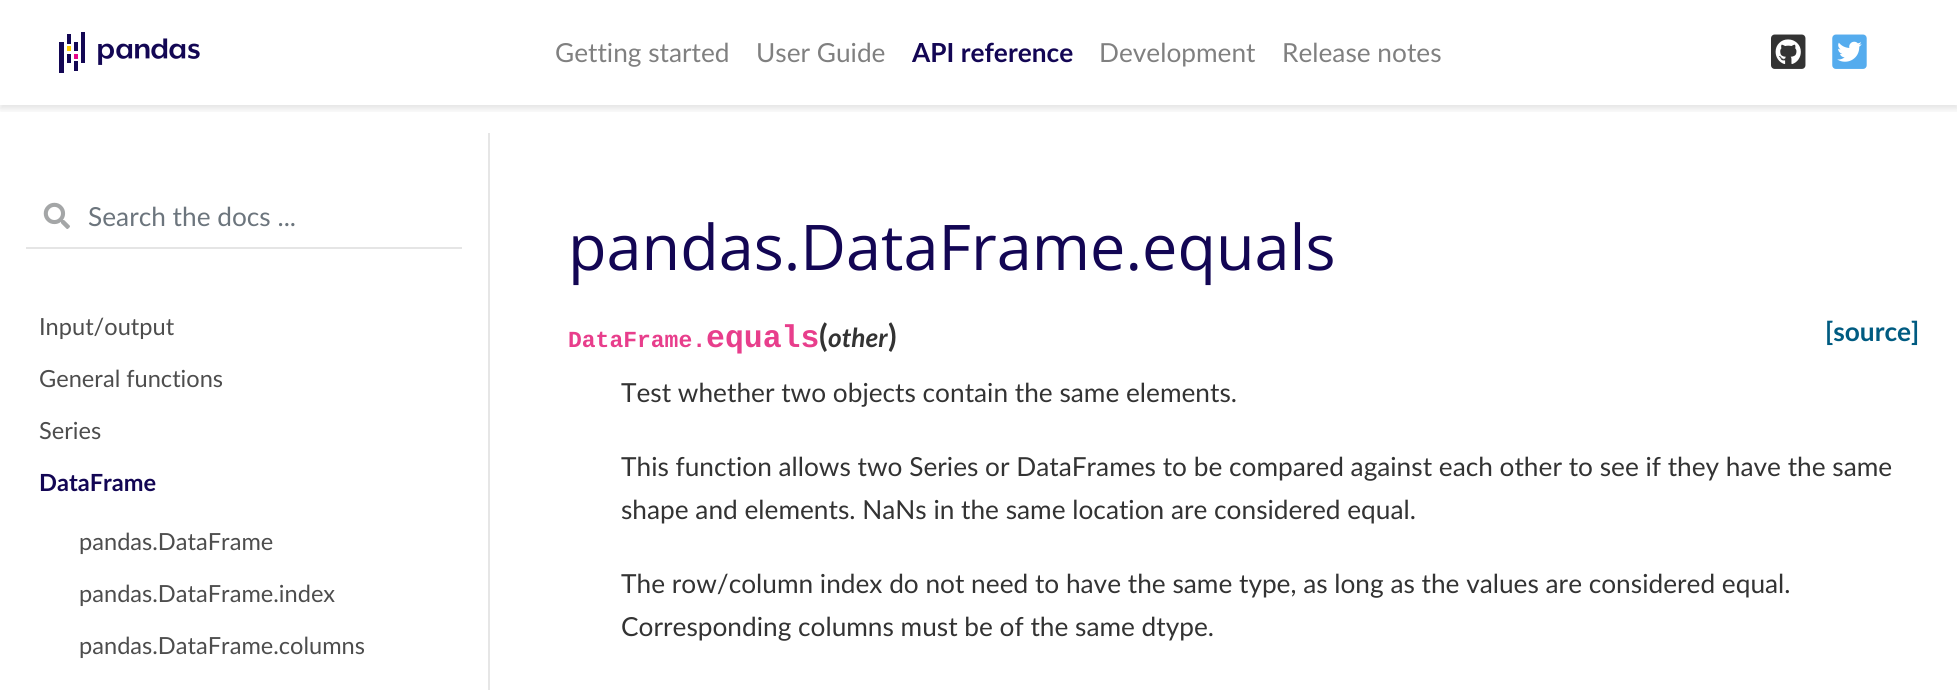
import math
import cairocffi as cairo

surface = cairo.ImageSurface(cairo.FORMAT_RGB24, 1957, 690)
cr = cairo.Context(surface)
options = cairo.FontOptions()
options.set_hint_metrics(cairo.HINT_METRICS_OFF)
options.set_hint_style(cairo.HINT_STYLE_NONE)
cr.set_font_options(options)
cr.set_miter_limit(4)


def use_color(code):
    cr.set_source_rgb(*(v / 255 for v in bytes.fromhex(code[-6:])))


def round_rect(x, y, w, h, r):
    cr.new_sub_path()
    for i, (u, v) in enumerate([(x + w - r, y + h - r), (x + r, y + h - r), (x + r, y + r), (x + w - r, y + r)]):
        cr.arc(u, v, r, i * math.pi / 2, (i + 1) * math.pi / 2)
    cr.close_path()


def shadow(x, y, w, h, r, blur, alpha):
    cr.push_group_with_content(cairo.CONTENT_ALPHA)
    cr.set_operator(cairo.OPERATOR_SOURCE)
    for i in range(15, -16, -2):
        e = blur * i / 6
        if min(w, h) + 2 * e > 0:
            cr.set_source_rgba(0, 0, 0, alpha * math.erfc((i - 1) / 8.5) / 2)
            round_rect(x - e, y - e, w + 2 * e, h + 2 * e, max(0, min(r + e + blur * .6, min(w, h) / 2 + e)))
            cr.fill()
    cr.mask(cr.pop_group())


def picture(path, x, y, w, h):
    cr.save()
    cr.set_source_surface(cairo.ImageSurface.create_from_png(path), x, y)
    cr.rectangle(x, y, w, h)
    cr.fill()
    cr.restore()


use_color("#ffffff")
cr.paint()
cr.save()
cr.rectangle(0, 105, 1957, 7)
cr.clip()
use_color("#000000")
shadow(0, 4, 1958, 105, 0, 3.5, 0.11)
cr.restore()
picture("img1.png", 59, 32, 141, 41)
cr.select_font_face("Lato")
cr.set_font_size(26.25)
use_color("#808080")
cr.move_to(555, 62)
cr.show_text("Getting started")
cr.move_to(756, 62)
cr.show_text("User Guide")
cr.select_font_face("Lato", cairo.FONT_SLANT_NORMAL, cairo.FONT_WEIGHT_BOLD)
use_color("#130654")
cr.move_to(912, 62)
cr.show_text("API reference")
cr.select_font_face("Lato")
use_color("#808080")
cr.move_to(1099, 62)
cr.show_text("Development")
cr.move_to(1282, 62)
cr.show_text("Release notes")
picture("img2.png", 1771, 34, 35, 35)
picture("img3.png", 1832, 34, 35, 35)
use_color("#e6e6e6")
cr.rectangle(488, 133, 2, 557)
cr.fill()
picture("img4.png", 43, 202, 27, 27)
use_color("#e5e5e5")
cr.rectangle(26, 247, 436, 2)
cr.fill()
use_color("#6c757d")
cr.move_to(88, 226)
cr.show_text("Search the docs ...")
cr.set_font_size(23.6)
use_color("#4d4d4d")
cr.move_to(39, 335)
cr.show_text("Input/output")
cr.move_to(39, 387)
cr.show_text("General functions")
cr.move_to(39, 439)
cr.show_text("Series")
cr.select_font_face("Lato", cairo.FONT_SLANT_NORMAL, cairo.FONT_WEIGHT_BOLD)
use_color("#130654")
cr.move_to(39, 491)
cr.show_text("DataFrame")
cr.select_font_face("Lato")
use_color("#4d4d4d")
cr.move_to(79, 550)
cr.show_text("pandas.DataFrame")
cr.move_to(79, 602)
cr.show_text("pandas.DataFrame.index")
cr.move_to(79, 654)
cr.show_text("pandas.DataFrame.columns")
cr.select_font_face("Open Sans")
cr.set_font_size(63)
use_color("#130654")
cr.move_to(568, 270)
cr.show_text("pandas.DataFrame.equals")
cr.select_font_face("Liberation Mono", cairo.FONT_SLANT_NORMAL, cairo.FONT_WEIGHT_BOLD)
cr.set_font_size(23)
use_color("#e83e8c")
cr.move_to(568, 347)
cr.show_text("DataFrame.")
cr.set_font_size(31.5)
cr.move_to(706, 347)
cr.show_text("equals")
cr.select_font_face("Lato", cairo.FONT_SLANT_NORMAL, cairo.FONT_WEIGHT_BOLD)
use_color("#333333")
cr.move_to(819, 347)
cr.show_text("(")
cr.select_font_face("Lato", cairo.FONT_SLANT_ITALIC, cairo.FONT_WEIGHT_BOLD)
cr.set_font_size(26.25)
cr.move_to(828, 347)
cr.show_text("other")
cr.select_font_face("Lato", cairo.FONT_SLANT_NORMAL, cairo.FONT_WEIGHT_BOLD)
cr.set_font_size(31.5)
cr.move_to(888, 347)
cr.show_text(")")
cr.set_font_size(26.25)
use_color("#005b81")
cr.move_to(1825, 341)
cr.show_text("[source]")
cr.select_font_face("Lato")
use_color("#333333")
cr.move_to(621, 402)
cr.show_text("Test whether two objects contain the same elements.")
cr.move_to(621, 476)
cr.show_text("This function allows two Series or DataFrames to be compared against each other to see if they have the same")
cr.move_to(621, 519)
cr.show_text("shape and elements. NaNs in the same location are considered equal.")
cr.move_to(621, 593)
cr.show_text("The row/column index do not need to have the same type, as long as the values are considered equal.")
cr.move_to(621, 636)
cr.show_text("Corresponding columns must be of the same dtype.")
surface.write_to_png("result.png")
